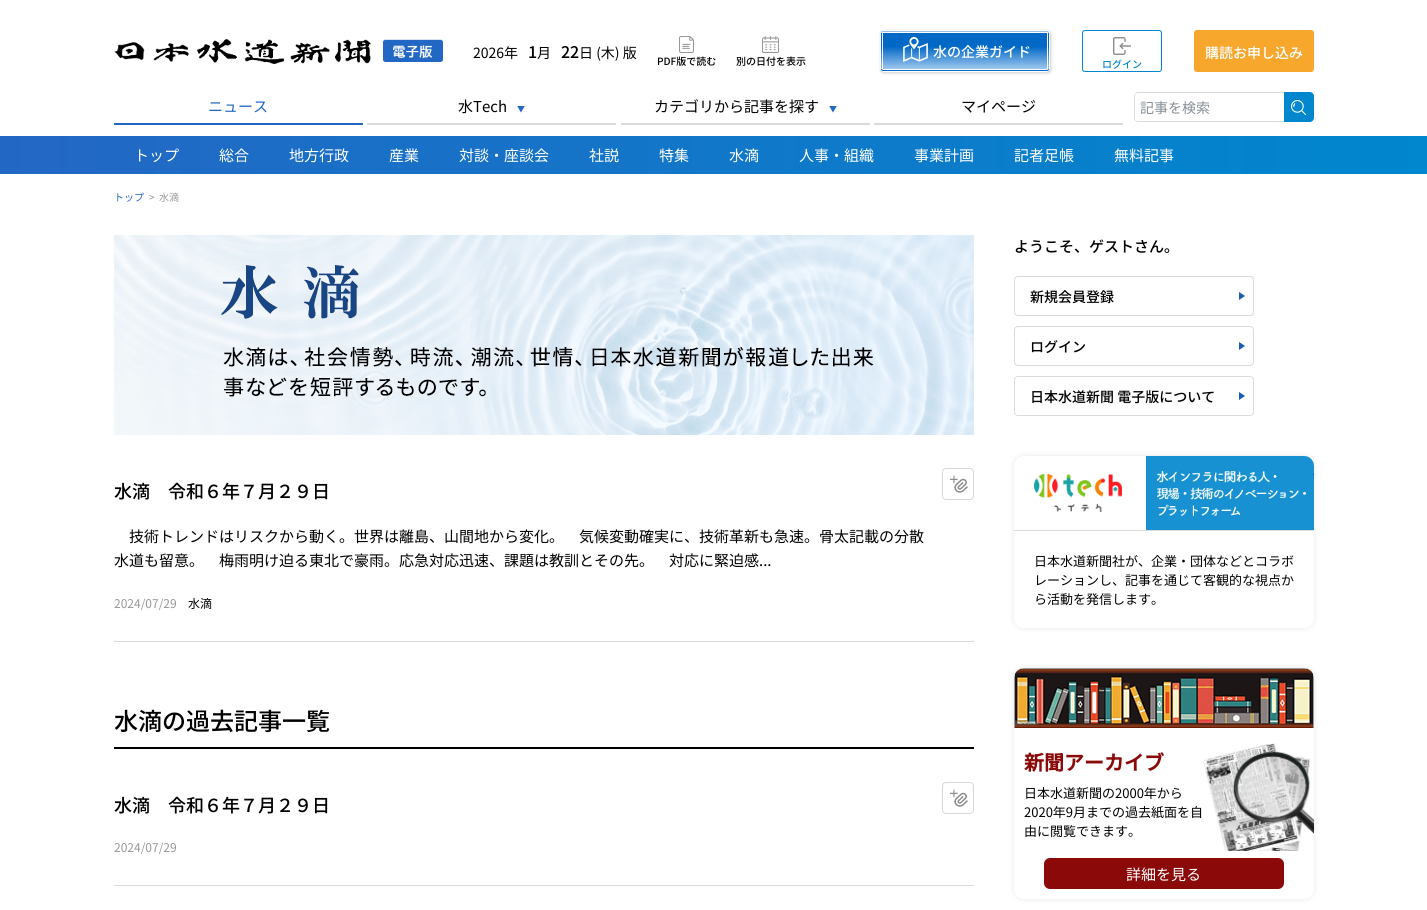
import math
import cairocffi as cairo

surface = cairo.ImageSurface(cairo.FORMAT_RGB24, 1427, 910)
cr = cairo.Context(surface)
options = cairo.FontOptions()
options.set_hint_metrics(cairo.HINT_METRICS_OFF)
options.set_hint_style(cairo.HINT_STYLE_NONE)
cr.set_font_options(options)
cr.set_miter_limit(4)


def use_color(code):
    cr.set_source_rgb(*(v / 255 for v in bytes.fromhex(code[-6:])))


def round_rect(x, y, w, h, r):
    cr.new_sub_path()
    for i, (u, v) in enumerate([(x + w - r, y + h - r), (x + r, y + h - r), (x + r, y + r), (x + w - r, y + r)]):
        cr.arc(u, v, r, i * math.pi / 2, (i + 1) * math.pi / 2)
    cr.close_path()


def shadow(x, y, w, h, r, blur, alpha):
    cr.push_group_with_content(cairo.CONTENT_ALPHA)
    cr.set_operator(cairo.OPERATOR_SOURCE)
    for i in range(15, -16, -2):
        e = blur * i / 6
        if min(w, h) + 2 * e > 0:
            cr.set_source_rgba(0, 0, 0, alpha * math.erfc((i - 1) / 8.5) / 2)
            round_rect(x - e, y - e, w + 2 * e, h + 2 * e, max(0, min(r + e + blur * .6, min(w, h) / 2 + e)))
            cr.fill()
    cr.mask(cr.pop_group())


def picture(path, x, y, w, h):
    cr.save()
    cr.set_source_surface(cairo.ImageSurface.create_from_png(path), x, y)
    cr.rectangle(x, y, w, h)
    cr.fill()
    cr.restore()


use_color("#ffffff")
cr.paint()
picture("img1.png", 114, 39, 329, 25)
cr.select_font_face("Noto Sans JP")
cr.set_font_size(14)
use_color("#000000")
cr.move_to(473, 58)
cr.show_text("2026年")
cr.select_font_face("Noto Sans JP Medium")
cr.set_font_size(16)
cr.move_to(528, 58)
cr.show_text("1")
cr.select_font_face("Noto Sans JP")
cr.set_font_size(14)
cr.move_to(537, 58)
cr.show_text("月")
cr.select_font_face("Noto Sans JP Medium")
cr.set_font_size(16)
cr.move_to(561, 58)
cr.show_text("22")
cr.select_font_face("Noto Sans JP")
cr.set_font_size(14)
cr.move_to(579, 58)
cr.show_text("日 (木) 版")
picture("img2.png", 679, 36, 15, 17)
cr.select_font_face("Noto Sans JP Medium")
cr.set_font_size(10)
cr.move_to(657, 65)
cr.show_text("PDF版で読む")
picture("img3.png", 762, 36, 17, 17)
cr.move_to(736, 65)
cr.show_text("別の日付を表示")
use_color("#cccccc")
shadow(881, 31, 170, 42, 3, 1.5, 1)
gradient = cairo.LinearGradient(801, -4.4, 801, 34)
gradient.add_color_stop_rgba(0.38, 0, 0.408, 0.773, 1)
gradient.add_color_stop_rgba(1, 0.651, 0.796, 0.945, 1)
cr.set_source(gradient)
cr.new_path()
cr.move_to(883, 30)
cr.line_to(883, 33)
cr.line_to(880, 33)
cr.curve_to(880, 31.5, 881.5, 30, 883, 30)
cr.close_path()
cr.fill()
gradient = cairo.LinearGradient(965, -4.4, 965, 34)
gradient.add_color_stop_rgba(0.38, 0, 0.408, 0.773, 1)
gradient.add_color_stop_rgba(1, 0.651, 0.796, 0.945, 1)
cr.set_source(gradient)
cr.rectangle(883, 31, 164, 1)
cr.fill()
gradient = cairo.LinearGradient(1129, -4.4, 1129, 34)
gradient.add_color_stop_rgba(0.38, 0, 0.408, 0.773, 1)
gradient.add_color_stop_rgba(1, 0.651, 0.796, 0.945, 1)
cr.set_source(gradient)
cr.new_path()
cr.move_to(1047, 30)
cr.curve_to(1048.5, 30, 1050, 31.5, 1050, 33)
cr.line_to(1047, 33)
cr.close_path()
cr.fill()
gradient = cairo.LinearGradient(801, 32, 801, 70)
gradient.add_color_stop_rgba(0.38, 0, 0.408, 0.773, 1)
gradient.add_color_stop_rgba(1, 0.651, 0.796, 0.945, 1)
cr.set_source(gradient)
cr.rectangle(881, 33, 1, 36)
cr.fill()
gradient = cairo.LinearGradient(965, 32, 965, 70)
gradient.add_color_stop_rgba(0.38, 0, 0.408, 0.773, 1)
gradient.add_color_stop_rgba(1, 0.651, 0.796, 0.945, 1)
cr.set_source(gradient)
cr.rectangle(883, 33, 164, 36)
cr.fill()
gradient = cairo.LinearGradient(1129, 32, 1129, 70)
gradient.add_color_stop_rgba(0.38, 0, 0.408, 0.773, 1)
gradient.add_color_stop_rgba(1, 0.651, 0.796, 0.945, 1)
cr.set_source(gradient)
cr.rectangle(1048, 33, 1, 36)
cr.fill()
gradient = cairo.LinearGradient(801, 68, 801, 106)
gradient.add_color_stop_rgba(0.38, 0, 0.408, 0.773, 1)
gradient.add_color_stop_rgba(1, 0.651, 0.796, 0.945, 1)
cr.set_source(gradient)
cr.new_path()
cr.move_to(880, 69)
cr.line_to(883, 69)
cr.line_to(883, 72)
cr.curve_to(881.5, 72, 880, 70.5, 880, 69)
cr.close_path()
cr.fill()
gradient = cairo.LinearGradient(965, 68, 965, 106)
gradient.add_color_stop_rgba(0.38, 0, 0.408, 0.773, 1)
gradient.add_color_stop_rgba(1, 0.651, 0.796, 0.945, 1)
cr.set_source(gradient)
cr.rectangle(883, 70, 164, 1)
cr.fill()
gradient = cairo.LinearGradient(1129, 68, 1129, 106)
gradient.add_color_stop_rgba(0.38, 0, 0.408, 0.773, 1)
gradient.add_color_stop_rgba(1, 0.651, 0.796, 0.945, 1)
cr.set_source(gradient)
cr.new_path()
cr.move_to(1047, 69)
cr.line_to(1050, 69)
cr.curve_to(1050, 70.5, 1048.5, 72, 1047, 72)
cr.close_path()
cr.fill()
round_rect(880.5, 30.5, 169, 41, 2.5)
use_color("#ffffff")
cr.set_line_width(1)
cr.stroke()
round_rect(882.5, 32.5, 165, 37, 0.5)
cr.stroke()
picture("img4.png", 903, 37, 25, 25)
cr.set_font_size(14)
cr.move_to(933, 57)
cr.show_text("水の企業ガイド")
use_color("#f8a72d")
round_rect(1194.5, 30.5, 119, 41, 2.5)
cr.fill_preserve()
cr.stroke()
use_color("#ffffff")
cr.move_to(1205, 58)
cr.show_text("購読お申し込み")
picture("img5.png", 1113, 37, 18, 18)
round_rect(1082.5, 30.5, 79, 41, 2.5)
use_color("#0087cd")
cr.stroke()
cr.set_font_size(10)
cr.move_to(1102, 68)
cr.show_text("ログイン")
use_color("#2367c4")
cr.rectangle(114, 123, 249, 2)
cr.fill()
cr.select_font_face("Noto Sans JP")
cr.set_font_size(15)
cr.move_to(208, 112)
cr.show_text("ニュース")
use_color("#dbdbdb")
cr.rectangle(367, 123, 249, 2)
cr.fill()
use_color("#000000")
cr.move_to(458, 112)
cr.show_text("水Tech")
cr.set_font_size(8)
use_color("#2367c4")
cr.move_to(517, 112)
cr.show_text("▼")
use_color("#dbdbdb")
cr.rectangle(621, 123, 249, 2)
cr.fill()
cr.set_font_size(15)
use_color("#000000")
cr.move_to(654, 112)
cr.show_text("カテゴリから記事を探す")
cr.set_font_size(8)
use_color("#2367c4")
cr.move_to(829, 112)
cr.show_text("▼")
use_color("#dbdbdb")
cr.rectangle(874, 123, 249, 2)
cr.fill()
cr.set_font_size(15)
use_color("#000000")
cr.move_to(961, 112)
cr.show_text("マイページ")
use_color("#dbdbdb")
cr.set_fill_rule(cairo.FILL_RULE_EVEN_ODD)
cr.new_path()
cr.move_to(1138, 92)
cr.line_to(1284, 92)
cr.line_to(1284, 122)
cr.line_to(1138, 122)
cr.curve_to(1136, 122, 1134, 120, 1134, 118)
cr.line_to(1134, 96)
cr.curve_to(1134, 94, 1136, 92, 1138, 92)
cr.close_path()
cr.move_to(1138, 93)
cr.line_to(1284, 93)
cr.line_to(1284, 121)
cr.line_to(1138, 121)
cr.curve_to(1136, 121, 1135, 120, 1135, 118)
cr.line_to(1135, 96)
cr.curve_to(1135, 94, 1136, 93, 1138, 93)
cr.close_path()
cr.fill()
cr.set_font_size(14)
use_color("#868e96")
cr.move_to(1140, 113)
cr.show_text("記事を検索")
use_color("#0087cd")
cr.new_path()
cr.move_to(1284, 92)
cr.line_to(1310, 92)
cr.curve_to(1312, 92, 1314, 94, 1314, 96)
cr.line_to(1314, 118)
cr.curve_to(1314, 120, 1312, 122, 1310, 122)
cr.line_to(1284, 122)
cr.close_path()
cr.fill()
picture("img6.png", 1291, 100, 15, 15)
gradient = cairo.LinearGradient(0, 155, 1427, 155)
gradient.add_color_stop_rgba(0, 0.137, 0.404, 0.769, 1)
gradient.add_color_stop_rgba(1, 0, 0.529, 0.804, 1)
cr.set_source(gradient)
cr.rectangle(0, 136, 1427, 38)
cr.fill()
cr.set_font_size(15)
use_color("#ffffff")
cr.move_to(134, 161)
cr.show_text("トップ")
cr.move_to(219, 161)
cr.show_text("総合")
cr.move_to(289, 161)
cr.show_text("地方行政")
cr.move_to(389, 161)
cr.show_text("産業")
cr.move_to(459, 161)
cr.show_text("対談・座談会")
cr.move_to(589, 161)
cr.show_text("社説")
cr.move_to(659, 161)
cr.show_text("特集")
cr.move_to(729, 161)
cr.show_text("水滴")
cr.move_to(799, 161)
cr.show_text("人事・組織")
cr.move_to(914, 161)
cr.show_text("事業計画")
cr.move_to(1014, 161)
cr.show_text("記者足帳")
cr.move_to(1114, 161)
cr.show_text("無料記事")
cr.set_font_size(10)
use_color("#2367c4")
cr.move_to(114, 201)
cr.show_text("トップ")
use_color("#8d8d8d")
cr.move_to(149, 201)
cr.show_text(">")
use_color("#989898")
cr.move_to(159, 201)
cr.show_text("水滴")
picture("img7.png", 114, 235, 860, 200)
use_color("#dbdbdb")
cr.rectangle(114, 641, 860, 1)
cr.fill()
cr.select_font_face("Noto Sans JP Medium")
cr.set_font_size(18)
use_color("#000000")
cr.move_to(114, 498)
cr.show_text("水滴　令和６年７月２９日")
cr.select_font_face("Noto Sans JP")
cr.set_font_size(15)
cr.move_to(129, 542)
cr.show_text("技術トレンドはリスクから動く。世界は離島、山間地から変化。　気候変動確実に、技術革新も急速。骨太記載の分散")
cr.move_to(114, 566)
cr.show_text("水道も留意。　梅雨明け迫る東北で豪雨。応急対応迅速、課題は教訓とその先。　対応に緊迫感...")
cr.set_font_size(12)
use_color("#989898")
cr.move_to(114, 608)
cr.show_text("2024/07/29")
use_color("#000000")
cr.move_to(188, 608)
cr.show_text("水滴")
picture("img8.png", 950, 475, 18, 18)
round_rect(942.5, 468.5, 31, 31, 3.5)
use_color("#d8d8d8")
cr.stroke()
use_color("#000000")
cr.rectangle(114, 747, 860, 2)
cr.fill()
cr.select_font_face("Noto Sans JP Medium")
cr.set_font_size(24)
cr.move_to(114, 730)
cr.show_text("水滴の過去記事一覧")
use_color("#dbdbdb")
cr.rectangle(114, 885, 860, 1)
cr.fill()
cr.set_font_size(18)
use_color("#000000")
cr.move_to(114, 812)
cr.show_text("水滴　令和６年７月２９日")
cr.select_font_face("Noto Sans JP")
cr.set_font_size(12)
use_color("#989898")
cr.move_to(114, 852)
cr.show_text("2024/07/29")
picture("img8.png", 950, 789, 18, 18)
round_rect(942.5, 782.5, 31, 31, 3.5)
use_color("#d8d8d8")
cr.stroke()
cr.select_font_face("Noto Sans JP Medium")
cr.set_font_size(15)
use_color("#000000")
cr.move_to(1014, 252)
cr.show_text("ようこそ、ゲストさん。")
use_color("#185bb8")
cr.set_fill_rule(cairo.FILL_RULE_WINDING)
cr.new_path()
cr.move_to(1245, 296)
cr.line_to(1239, 300)
cr.line_to(1239, 292)
cr.close_path()
cr.fill()
round_rect(1014.5, 276.5, 239, 39, 3.5)
use_color("#dbdbdb")
cr.stroke()
cr.set_font_size(14)
use_color("#000000")
cr.move_to(1030, 302)
cr.show_text("新規会員登録")
use_color("#185bb8")
cr.new_path()
cr.move_to(1245, 346)
cr.line_to(1239, 350)
cr.line_to(1239, 342)
cr.close_path()
cr.fill()
round_rect(1014.5, 326.5, 239, 39, 3.5)
use_color("#dbdbdb")
cr.stroke()
use_color("#000000")
cr.move_to(1030, 352)
cr.show_text("ログイン")
use_color("#185bb8")
cr.new_path()
cr.move_to(1245, 396)
cr.line_to(1239, 400)
cr.line_to(1239, 392)
cr.close_path()
cr.fill()
round_rect(1014.5, 376.5, 239, 39, 3.5)
use_color("#dbdbdb")
cr.stroke()
use_color("#000000")
cr.move_to(1030, 402)
cr.show_text("日本水道新聞 電子版について")
use_color("#000000")
shadow(1014, 456, 300, 172, 10, 3, 0.1)
use_color("#ffffff")
round_rect(1014, 456, 300, 172, 10)
cr.fill()
picture("img9.png", 1034, 474, 88, 38)
use_color("#dbdbdb")
cr.rectangle(1014, 530, 300, 1)
cr.fill()
use_color("#4cabdc")
cr.new_path()
cr.move_to(1146, 456)
cr.line_to(1304, 456)
cr.curve_to(1309.5, 456, 1314, 460.5, 1314, 466)
cr.line_to(1314, 530)
cr.line_to(1146, 530)
cr.close_path()
cr.fill()
picture("img10.png", 1146, 456, 168, 74)
cr.select_font_face("Noto Sans JP")
cr.set_font_size(13)
use_color("#000000")
cr.move_to(1034, 566)
cr.show_text("日本水道新聞社が、企業・団体などとコラボ")
cr.move_to(1034, 585)
cr.show_text("レーションし、記事を通じて客観的な視点か")
cr.move_to(1034, 604)
cr.show_text("ら活動を発信します。")
use_color("#000000")
shadow(1014, 668, 300, 231, 10, 3, 0.1)
use_color("#ffffff")
round_rect(1014, 668, 300, 231, 10)
cr.fill()
picture("img11.png", 1014, 668, 300, 60)
picture("img12.png", 1203, 743, 111, 108)
cr.select_font_face("Noto Sans JP", cairo.FONT_SLANT_NORMAL, cairo.FONT_WEIGHT_BOLD)
cr.set_font_size(20)
use_color("#8c0909")
cr.move_to(1024, 770)
cr.show_text("新聞アーカイブ")
cr.select_font_face("Noto Sans JP")
cr.set_font_size(13)
use_color("#000000")
cr.move_to(1024, 798)
cr.show_text("日本水道新聞の2000年から")
cr.move_to(1024, 817)
cr.show_text("2020年9月までの過去紙面を自")
cr.move_to(1024, 836)
cr.show_text("由に閲覧できます。")
use_color("#8c0909")
round_rect(1044, 858, 240, 31, 6)
cr.fill()
cr.set_font_size(15)
use_color("#ffffff")
cr.move_to(1126, 880)
cr.show_text("詳細を見る")
surface.write_to_png("result.png")
